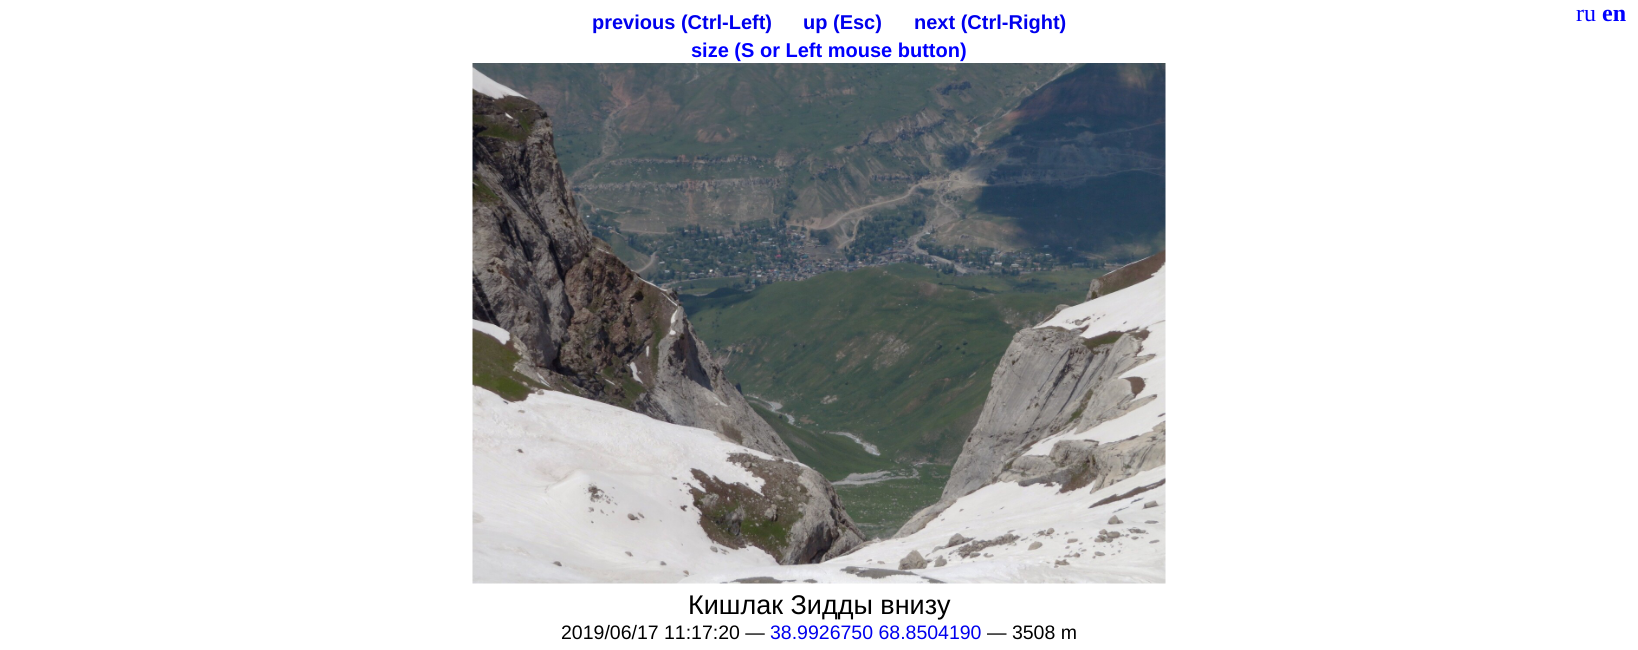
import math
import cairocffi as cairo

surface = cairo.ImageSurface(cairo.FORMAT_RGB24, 1638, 650)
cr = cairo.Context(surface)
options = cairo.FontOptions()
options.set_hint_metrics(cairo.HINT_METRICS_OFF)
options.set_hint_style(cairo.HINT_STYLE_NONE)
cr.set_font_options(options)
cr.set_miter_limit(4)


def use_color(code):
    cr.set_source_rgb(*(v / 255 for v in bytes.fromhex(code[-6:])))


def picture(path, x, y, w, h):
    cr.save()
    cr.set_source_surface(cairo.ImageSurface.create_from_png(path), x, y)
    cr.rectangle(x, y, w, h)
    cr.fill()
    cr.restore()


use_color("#ffffff")
cr.paint()
cr.select_font_face("Liberation Sans", cairo.FONT_SLANT_NORMAL, cairo.FONT_WEIGHT_BOLD)
cr.set_font_size(20)
use_color("#0000ee")
cr.move_to(592, 29)
cr.show_text("previous (Ctrl-Left)")
cr.move_to(803, 29)
cr.show_text("up (Esc)")
cr.move_to(914, 29)
cr.show_text("next (Ctrl-Right)")
use_color("#0000ff")
cr.move_to(691, 57)
cr.show_text("size (S or Left mouse button)")
cr.select_font_face("Liberation Serif")
cr.set_font_size(24)
cr.move_to(1576, 21)
cr.show_text("ru")
cr.select_font_face("Liberation Serif", cairo.FONT_SLANT_NORMAL, cairo.FONT_WEIGHT_BOLD)
cr.move_to(1602, 21)
cr.show_text("en")
picture("img1.png", 472, 63, 694, 521)
cr.select_font_face("Liberation Sans")
cr.set_font_size(27)
use_color("#000000")
cr.move_to(688, 614)
cr.show_text("Кишлак Зидды внизу")
cr.set_font_size(19.5)
cr.move_to(561, 639)
cr.show_text("2019/06/17 11:17:20 —")
use_color("#0000ee")
cr.move_to(770, 639)
cr.show_text("38.9926750 68.8504190")
use_color("#000000")
cr.move_to(987, 639)
cr.show_text("— 3508 m")
surface.write_to_png("result.png")
